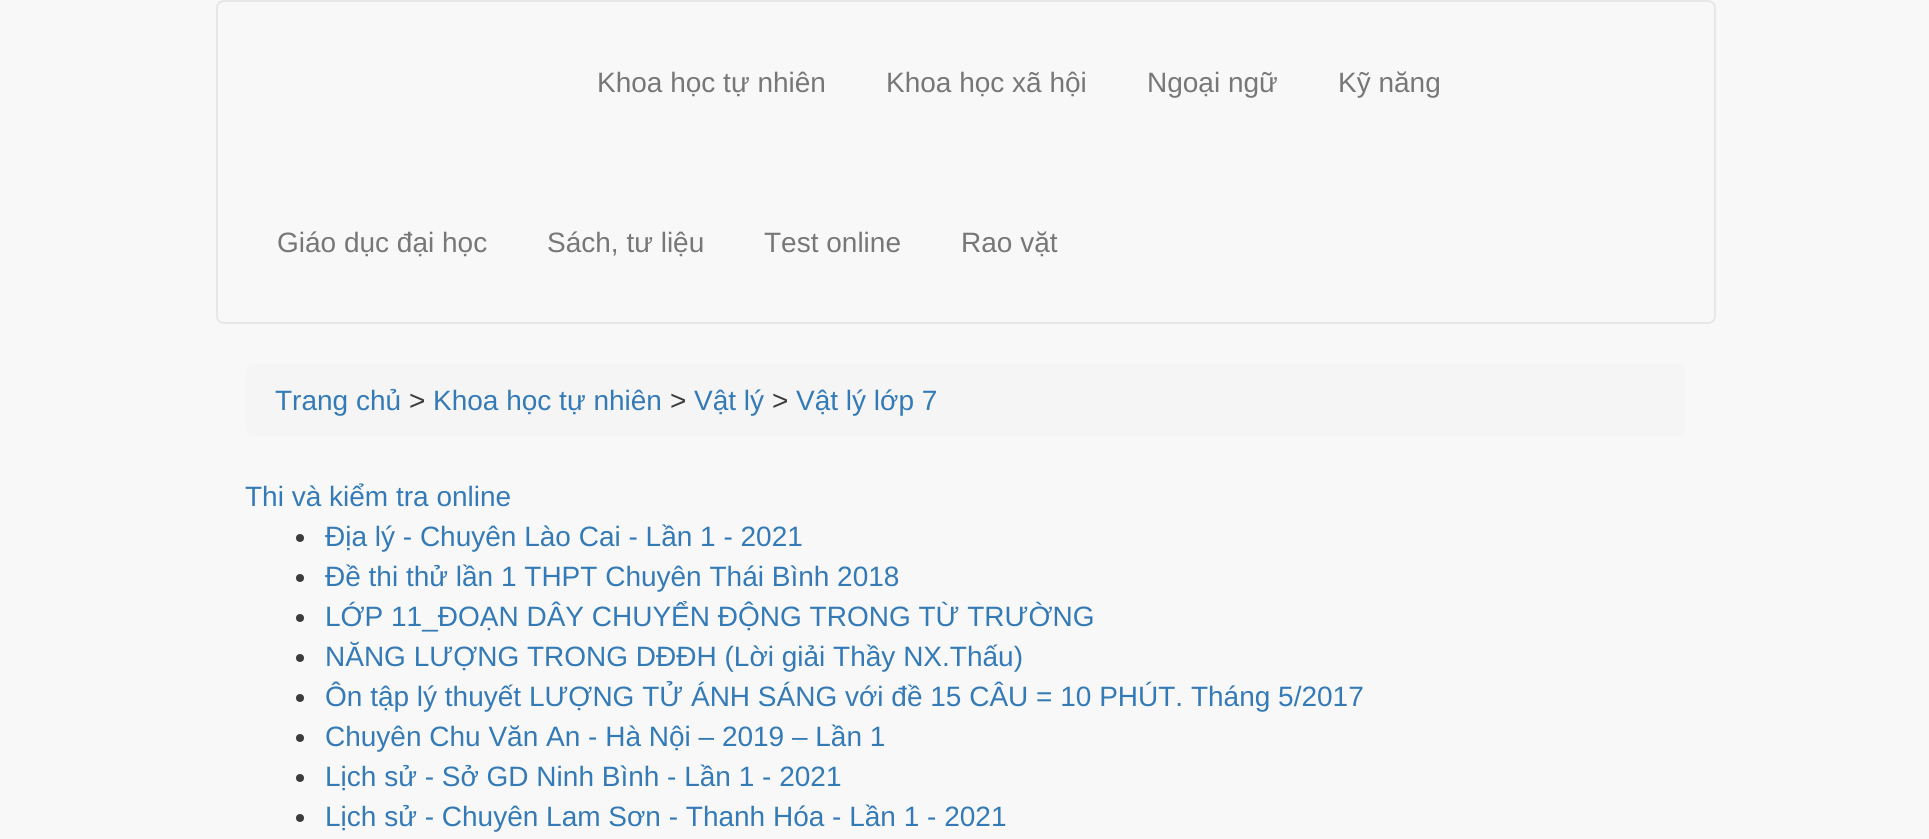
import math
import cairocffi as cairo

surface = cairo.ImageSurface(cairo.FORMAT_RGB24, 1929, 839)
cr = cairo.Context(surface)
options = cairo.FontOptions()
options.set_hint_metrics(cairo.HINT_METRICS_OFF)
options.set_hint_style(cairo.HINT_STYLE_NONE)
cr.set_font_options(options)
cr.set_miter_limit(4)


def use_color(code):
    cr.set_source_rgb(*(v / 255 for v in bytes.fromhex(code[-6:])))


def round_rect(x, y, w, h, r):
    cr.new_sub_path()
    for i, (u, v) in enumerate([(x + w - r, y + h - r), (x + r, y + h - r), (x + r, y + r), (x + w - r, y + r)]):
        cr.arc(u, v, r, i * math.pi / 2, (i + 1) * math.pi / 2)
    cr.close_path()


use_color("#f9f8f9")
cr.paint()
round_rect(217, 1, 1498, 322, 7)
use_color("#e7e7e7")
cr.stroke()
cr.select_font_face("Liberation Sans")
cr.set_font_size(28)
use_color("#777777")
cr.move_to(597, 92)
cr.show_text("Khoa học tự nhiên")
cr.move_to(886, 92)
cr.show_text("Khoa học xã hội")
cr.move_to(1147, 92)
cr.show_text("Ngoại ngữ")
cr.move_to(1338, 92)
cr.show_text("Kỹ năng")
cr.move_to(277, 252)
cr.show_text("Giáo dục đại học")
cr.move_to(547, 252)
cr.show_text("Sách, tư liệu")
cr.move_to(764, 252)
cr.show_text("Test online")
cr.move_to(961, 252)
cr.show_text("Rao vặt")
use_color("#f5f5f5")
round_rect(246, 364, 1440, 72, 8)
cr.fill()
use_color("#337ab7")
cr.move_to(275, 410)
cr.show_text("Trang chủ")
use_color("#3c3c3c")
cr.move_to(409, 410)
cr.show_text(">")
use_color("#337ab7")
cr.move_to(433, 410)
cr.show_text("Khoa học tự nhiên")
use_color("#3c3c3c")
cr.move_to(670, 410)
cr.show_text(">")
use_color("#337ab7")
cr.move_to(694, 410)
cr.show_text("Vật lý")
use_color("#3c3c3c")
cr.move_to(772, 410)
cr.show_text(">")
use_color("#337ab7")
cr.move_to(796, 410)
cr.show_text("Vật lý lớp 7")
cr.move_to(245, 506)
cr.show_text("Thi và kiểm tra online")
use_color("#3c3c3c")
cr.new_path()
cr.arc(300, 538, 4, 0, 2 * math.pi)
cr.fill()
use_color("#337ab7")
cr.move_to(325, 546)
cr.show_text("Địa lý - Chuyên Lào Cai - Lần 1 - 2021")
use_color("#3c3c3c")
cr.new_path()
cr.arc(300, 578, 4, 0, 2 * math.pi)
cr.fill()
use_color("#337ab7")
cr.move_to(325, 586)
cr.show_text("Đề thi thử lần 1 THPT Chuyên Thái Bình 2018")
use_color("#3c3c3c")
cr.new_path()
cr.arc(300, 618, 4, 0, 2 * math.pi)
cr.fill()
use_color("#337ab7")
cr.move_to(325, 626)
cr.show_text("LỚP 11_ĐOẠN DÂY CHUYỂN ĐỘNG TRONG TỪ TRƯỜNG")
use_color("#3c3c3c")
cr.new_path()
cr.arc(300, 658, 4, 0, 2 * math.pi)
cr.fill()
use_color("#337ab7")
cr.move_to(325, 666)
cr.show_text("NĂNG LƯỢNG TRONG DĐĐH (Lời giải Thầy NX.Thấu)")
use_color("#3c3c3c")
cr.new_path()
cr.arc(300, 698, 4, 0, 2 * math.pi)
cr.fill()
use_color("#337ab7")
cr.move_to(325, 706)
cr.show_text("Ôn tập lý thuyết LƯỢNG TỬ ÁNH SÁNG với đề 15 CÂU = 10 PHÚT. Tháng 5/2017")
use_color("#3c3c3c")
cr.new_path()
cr.arc(300, 738, 4, 0, 2 * math.pi)
cr.fill()
use_color("#337ab7")
cr.move_to(325, 746)
cr.show_text("Chuyên Chu Văn An - Hà Nội – 2019 – Lần 1")
use_color("#3c3c3c")
cr.new_path()
cr.arc(300, 778, 4, 0, 2 * math.pi)
cr.fill()
use_color("#337ab7")
cr.move_to(325, 786)
cr.show_text("Lịch sử - Sở GD Ninh Bình - Lần 1 - 2021")
use_color("#3c3c3c")
cr.new_path()
cr.arc(300, 818, 4, 0, 2 * math.pi)
cr.fill()
use_color("#337ab7")
cr.move_to(325, 826)
cr.show_text("Lịch sử - Chuyên Lam Sơn - Thanh Hóa - Lần 1 - 2021")
surface.write_to_png("result.png")
